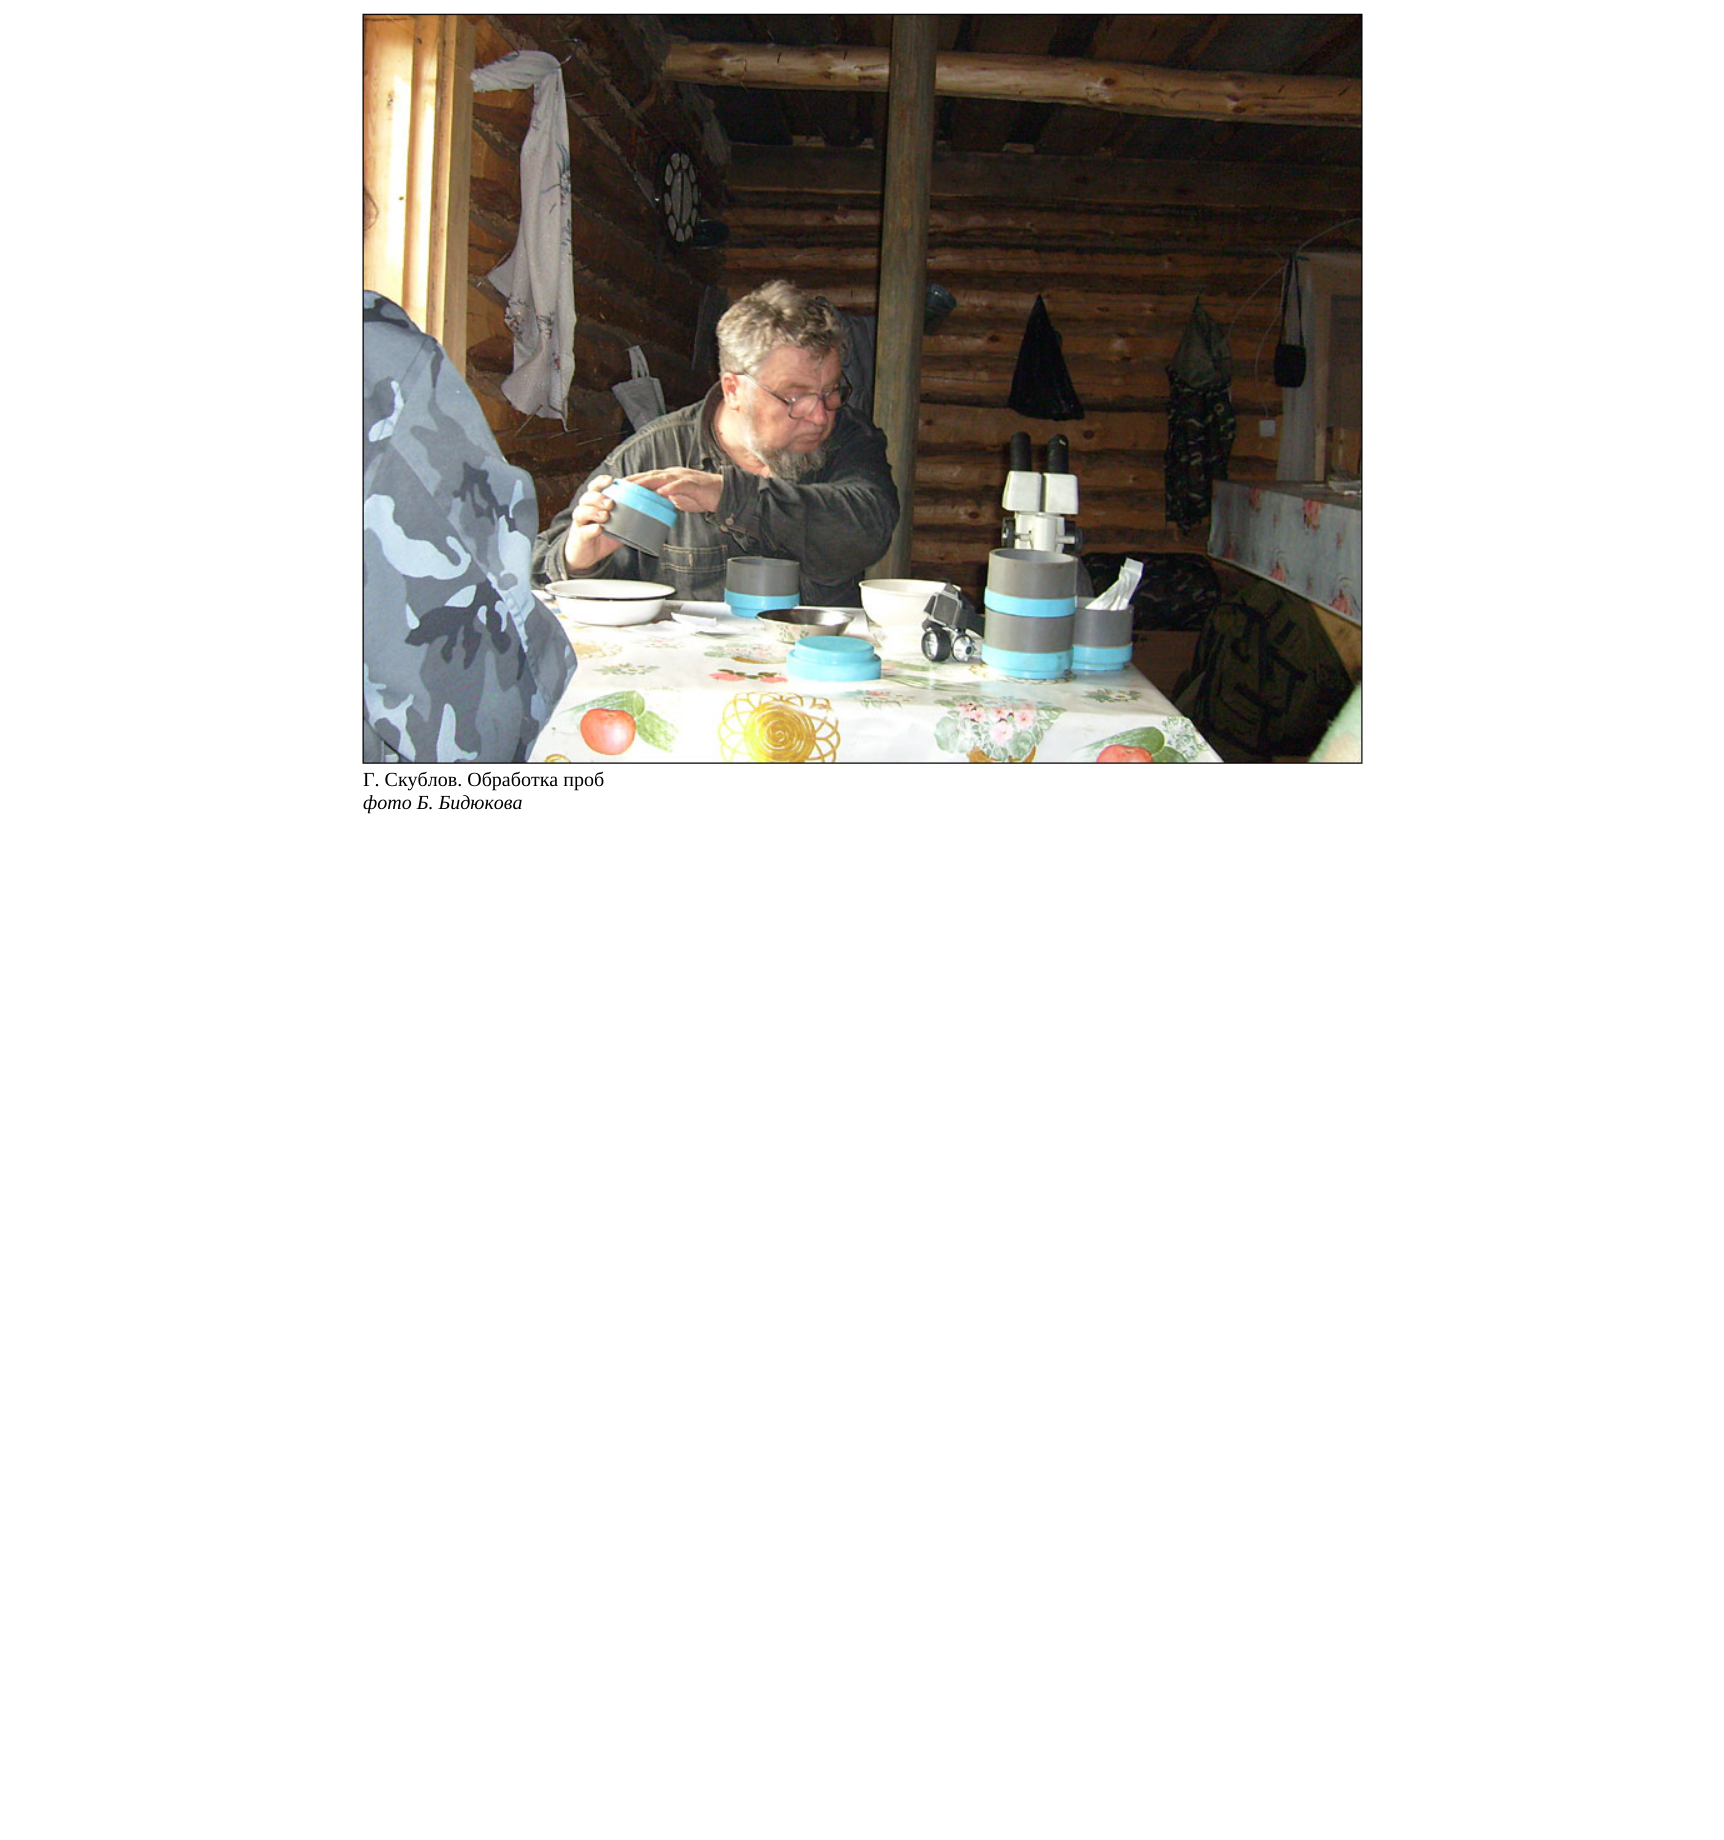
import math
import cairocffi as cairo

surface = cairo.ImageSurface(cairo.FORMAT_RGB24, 1724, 1840)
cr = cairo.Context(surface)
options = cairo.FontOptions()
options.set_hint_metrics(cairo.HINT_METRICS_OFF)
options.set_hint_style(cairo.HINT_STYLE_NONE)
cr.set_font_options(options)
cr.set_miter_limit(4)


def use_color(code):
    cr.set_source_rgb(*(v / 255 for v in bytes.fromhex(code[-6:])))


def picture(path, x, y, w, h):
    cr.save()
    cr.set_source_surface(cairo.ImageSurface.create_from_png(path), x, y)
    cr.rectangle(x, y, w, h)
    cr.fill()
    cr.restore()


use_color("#ffffff")
cr.paint()
picture("img1.png", 362, 13, 1001, 751)
cr.select_font_face("Liberation Serif")
cr.set_font_size(20)
use_color("#000000")
cr.move_to(363, 786)
cr.show_text("Г. Скублов. Обработка проб")
cr.select_font_face("Liberation Serif", cairo.FONT_SLANT_ITALIC)
cr.move_to(363, 809)
cr.show_text("фото Б. Бидюкова")
surface.write_to_png("result.png")
